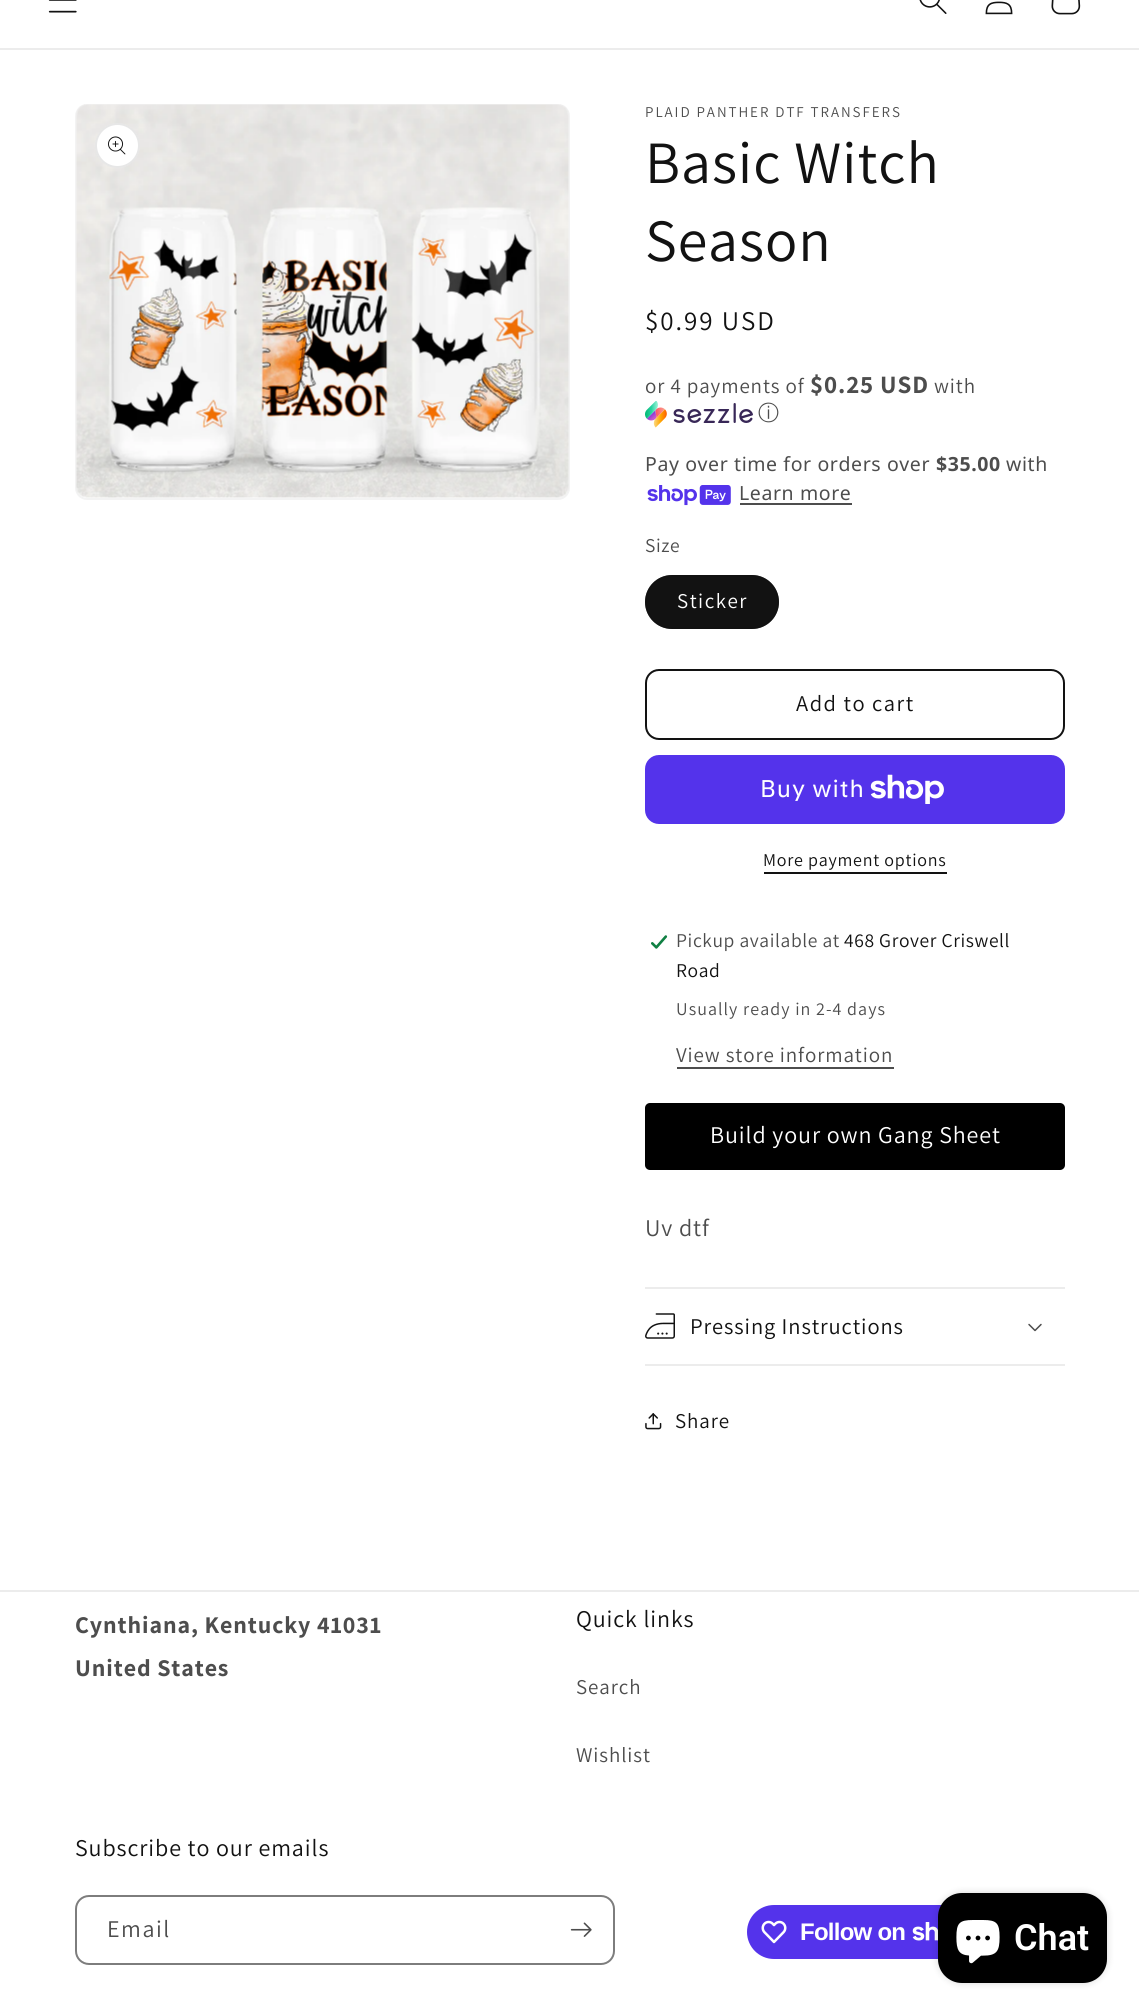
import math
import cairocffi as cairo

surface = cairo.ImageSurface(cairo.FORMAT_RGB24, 1139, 2014)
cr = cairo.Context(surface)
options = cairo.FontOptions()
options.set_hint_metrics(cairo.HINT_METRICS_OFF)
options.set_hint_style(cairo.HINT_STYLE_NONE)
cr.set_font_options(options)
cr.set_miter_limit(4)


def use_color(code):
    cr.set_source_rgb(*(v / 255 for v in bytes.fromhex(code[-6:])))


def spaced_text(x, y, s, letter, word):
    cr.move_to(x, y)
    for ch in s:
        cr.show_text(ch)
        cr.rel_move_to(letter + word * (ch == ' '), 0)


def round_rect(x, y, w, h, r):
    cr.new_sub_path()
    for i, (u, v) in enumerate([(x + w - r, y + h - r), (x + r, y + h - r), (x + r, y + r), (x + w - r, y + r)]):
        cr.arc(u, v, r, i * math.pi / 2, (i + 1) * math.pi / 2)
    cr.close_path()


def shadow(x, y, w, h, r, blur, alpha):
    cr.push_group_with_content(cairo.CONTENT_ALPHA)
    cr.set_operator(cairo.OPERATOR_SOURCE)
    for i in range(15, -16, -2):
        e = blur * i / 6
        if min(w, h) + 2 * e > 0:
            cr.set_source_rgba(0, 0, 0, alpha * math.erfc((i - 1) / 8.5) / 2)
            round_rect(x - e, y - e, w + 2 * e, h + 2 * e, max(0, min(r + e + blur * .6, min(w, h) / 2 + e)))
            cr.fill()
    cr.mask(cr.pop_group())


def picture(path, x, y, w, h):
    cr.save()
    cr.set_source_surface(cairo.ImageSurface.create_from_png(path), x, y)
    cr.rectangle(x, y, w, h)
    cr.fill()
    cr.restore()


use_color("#ffffff")
cr.paint()
use_color("#ececec")
cr.rectangle(0, 48, 1139, 2)
cr.fill()
picture("img1.png", 48, 0, 29, 13)
picture("img2.png", 919, 0, 28, 14)
picture("img3.png", 985, 1, 28, 14)
picture("img4.png", 1051, 0, 30, 15)
round_rect(76, 105, 493, 394, 11)
use_color("#f3f3f3")
cr.stroke()
picture("img5.png", 76, 104, 493, 394)
use_color("#ffffff")
cr.arc(117.5, 145.5, 22.5, 0, 2 * math.pi)
cr.fill()
cr.arc(117.5, 145.5, 21.5, 0, 2 * math.pi)
cr.set_source_rgba(0.071, 0.071, 0.071, 0.1)
cr.stroke()
picture("img6.png", 108, 136, 18, 19)
cr.select_font_face("Assistant")
cr.set_font_size(15)
use_color("#4d4d4d")
spaced_text(645, 117, "PLAID PANTHER DTF TRANSFERS", 1.95, 0)
cr.set_font_size(60)
use_color("#121212")
spaced_text(645, 183, "Basic Witch", 0.9, 0)
spaced_text(645, 261, "Season", 0.9, 0)
cr.set_font_size(27)
spaced_text(645, 330, "$0.99 USD", 1.95, 0)
cr.set_font_size(21)
use_color("#4d4d4d")
spaced_text(645, 393, "or 4 payments of", 0.9, 0)
cr.select_font_face("Assistant", cairo.FONT_SLANT_NORMAL, cairo.FONT_WEIGHT_BOLD)
cr.set_font_size(25)
spaced_text(810, 393, "$0.25 USD", 0.9, 0)
cr.select_font_face("Assistant")
cr.set_font_size(21)
spaced_text(934, 393, "with", 0.9, 0)
picture("img7.png", 645, 401, 108, 27)
cr.select_font_face("WenQuanYi Zen Hei Medium")
spaced_text(758, 420, "ⓘ", 0.9, 0)
cr.select_font_face("Noto Sans")
cr.set_font_size(19.5)
spaced_text(645, 471, "Pay over time for orders over", 0.6, 0)
cr.select_font_face("Noto Sans", cairo.FONT_SLANT_NORMAL, cairo.FONT_WEIGHT_BOLD)
spaced_text(936, 471, "$35.00", 0.6, 0)
cr.select_font_face("Noto Sans")
spaced_text(1006, 471, "with", 0.6, 0)
picture("img8.png", 647, 485, 84, 21)
spaced_text(739, 500, "Learn more", 0.6, 0)
cr.rectangle(740, 503, 112, 2)
cr.fill()
cr.select_font_face("Assistant")
spaced_text(645, 552, "Size", 0.6, 0)
use_color("#121212")
round_rect(645, 575, 134, 54, 27)
cr.fill()
round_rect(646, 576, 132, 52, 26)
cr.set_source_rgba(0.071, 0.071, 0.071, 0.55)
cr.stroke()
cr.set_font_size(21)
use_color("#ffffff")
spaced_text(677, 608, "Sticker", 1.5, 0)
round_rect(646, 670, 418, 69, 13)
use_color("#121212")
cr.stroke()
cr.set_font_size(22.5)
spaced_text(796, 711, "Add to cart", 1.5, 0)
use_color("#5433eb")
round_rect(645, 755, 420, 69, 14)
cr.fill()
cr.select_font_face("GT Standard")
cr.set_font_size(24)
use_color("#ffffff")
spaced_text(760, 797, "Buy with", 0.9, 0)
picture("img9.png", 870, 774, 74, 30)
cr.select_font_face("Assistant")
cr.set_font_size(18)
use_color("#121212")
spaced_text(763, 866, "More payment options", 0.75, 0)
cr.rectangle(764, 872, 183, 2)
cr.fill()
picture("img10.png", 651, 935, 17, 15)
cr.set_font_size(19.5)
use_color("#4d4d4d")
spaced_text(676, 947, "Pickup available at", 0.6, 0)
use_color("#121212")
spaced_text(844, 947, "468 Grover Criswell", 0.6, 0)
spaced_text(676, 977, "Road", 0.6, 0)
cr.set_font_size(18)
use_color("#4d4d4d")
spaced_text(676, 1015, "Usually ready in 2-4 days", 1.05, 0)
cr.set_font_size(21)
spaced_text(676, 1062, "View store information", 0.9, 0)
cr.rectangle(677, 1067, 217, 2)
cr.fill()
use_color("#000000")
round_rect(645, 1103, 420, 67, 5)
cr.fill()
cr.set_font_size(24)
use_color("#ffffff")
spaced_text(710, 1143, "Build your own Gang Sheet", 0.9, 0)
use_color("#4d4d4d")
spaced_text(645, 1236, "Uv dtf", 0.9, 0)
use_color("#ececec")
cr.rectangle(645, 1287, 420, 2)
cr.fill()
cr.rectangle(645, 1364, 420, 2)
cr.fill()
picture("img11.png", 645, 1313, 30, 26)
cr.set_font_size(22.5)
use_color("#121212")
spaced_text(690, 1334, "Pressing Instructions", 0.9, 0)
picture("img12.png", 1028, 1323, 14, 9)
picture("img13.png", 645, 1413, 17, 17)
cr.set_font_size(21)
spaced_text(675, 1428, "Share", 0.9, 0)
use_color("#ececec")
cr.rectangle(0, 1590, 1139, 2)
cr.fill()
cr.select_font_face("Assistant", cairo.FONT_SLANT_NORMAL, cairo.FONT_WEIGHT_BOLD)
cr.set_font_size(24)
use_color("#4d4d4d")
spaced_text(75, 1633, "Cynthiana, Kentucky 41031", 0.9, 0)
spaced_text(75, 1676, "United States", 0.9, 0)
cr.select_font_face("Assistant")
use_color("#121212")
spaced_text(576, 1627, "Quick links", 0.9, 0)
cr.set_font_size(21)
use_color("#4d4d4d")
spaced_text(576, 1694, "Search", 0.9, 0)
spaced_text(576, 1762, "Wishlist", 0.9, 0)
cr.set_font_size(24)
use_color("#121212")
spaced_text(75, 1856, "Subscribe to our emails", 0.9, 0)
round_rect(76, 1896, 538, 68, 13)
use_color("#7d7d7d")
cr.stroke()
use_color("#4d4d4d")
spaced_text(107, 1937, "Email", 1.5, 0)
picture("img14.png", 570, 1922, 22, 15)
use_color("#5433eb")
round_rect(747, 1905, 240, 54, 27)
cr.fill()
picture("img15.png", 761, 1920, 26, 24)
cr.select_font_face("Liberation Sans", cairo.FONT_SLANT_NORMAL, cairo.FONT_WEIGHT_BOLD)
use_color("#ffffff")
spaced_text(800, 1940, "Follow on", -0.75, 0)
picture("img16.png", 912, 1922, 26, 19)
use_color("#000000")
shadow(938, 1893, 169, 90, 24, 4, 0.15)
use_color("#000000")
round_rect(938, 1893, 169, 90, 24)
cr.fill()
picture("img17.png", 956, 1920, 44, 44)
cr.select_font_face("Roboto SemiBold")
cr.set_font_size(36)
use_color("#ffffff")
cr.move_to(1014, 1950)
cr.show_text("Chat")
surface.write_to_png("result.png")
